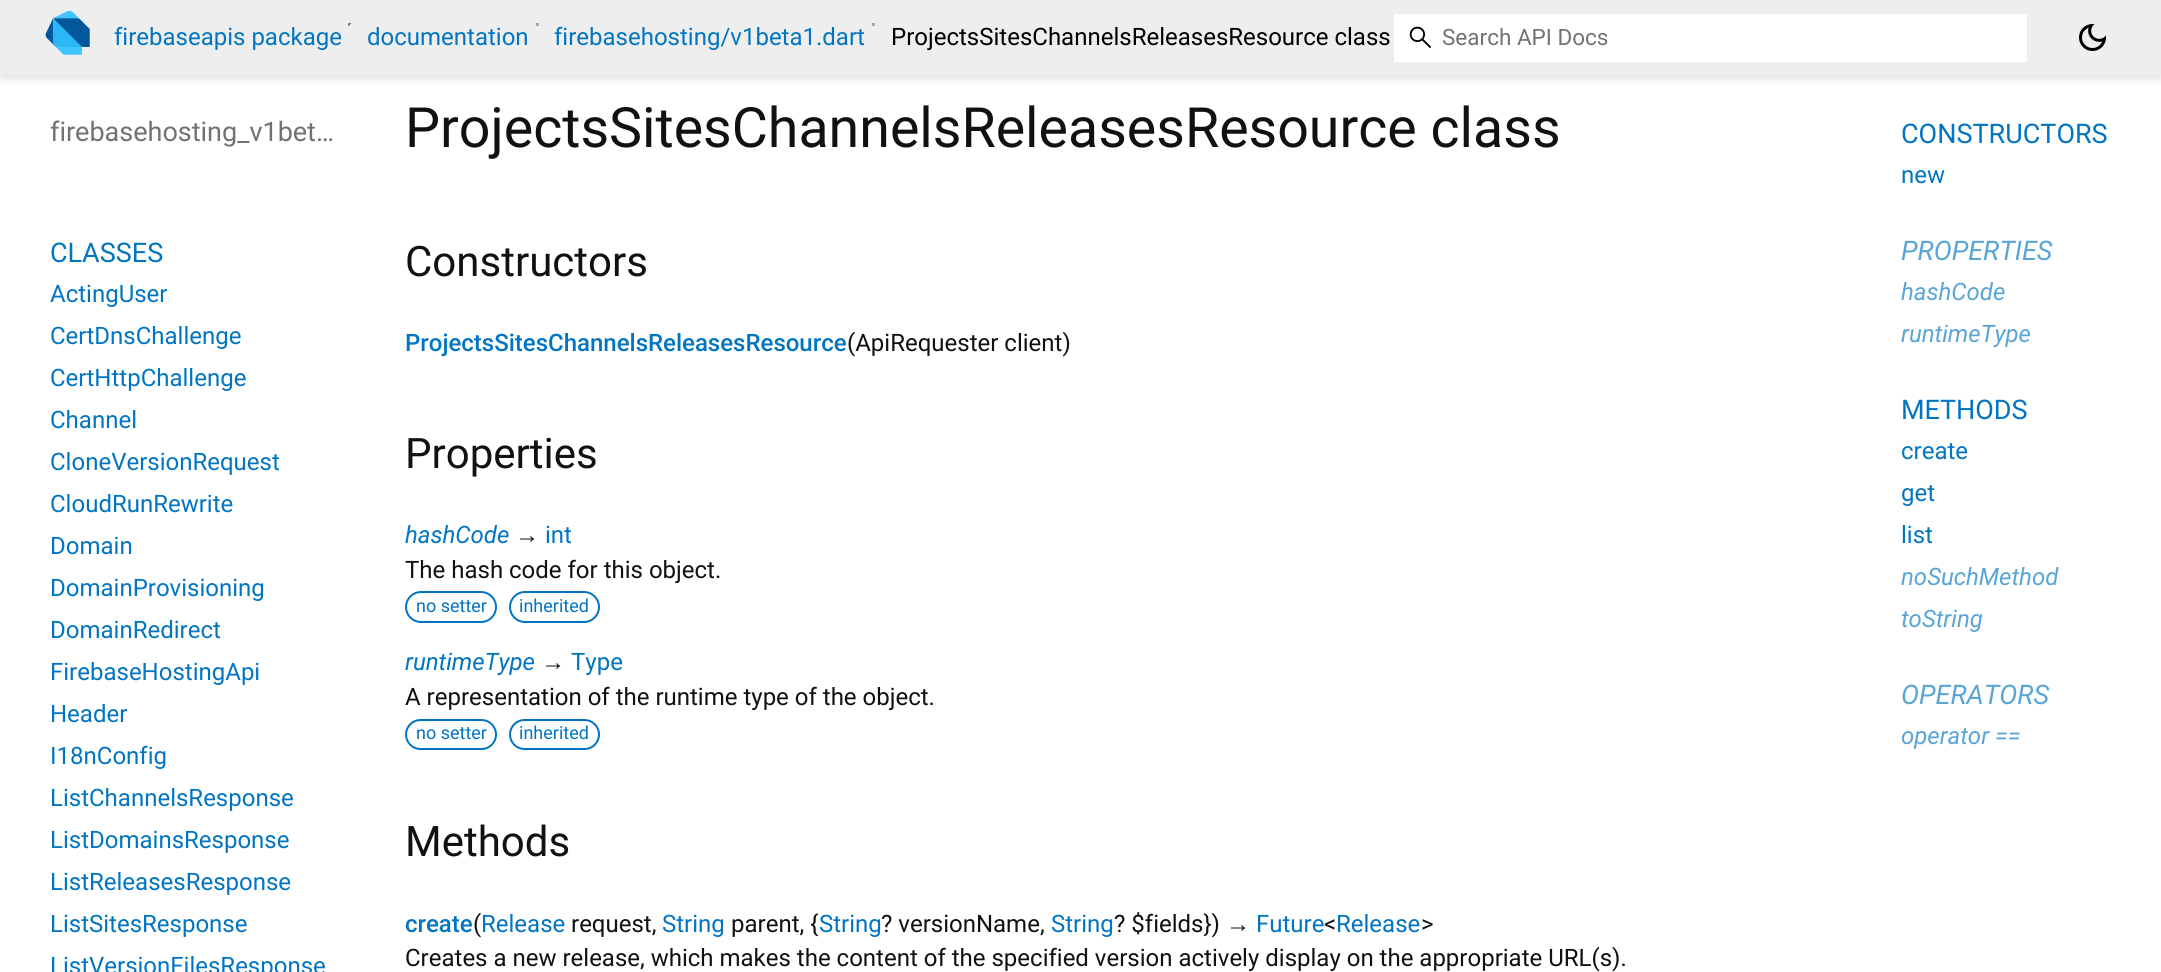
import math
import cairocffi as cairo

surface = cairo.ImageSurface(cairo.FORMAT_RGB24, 2161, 972)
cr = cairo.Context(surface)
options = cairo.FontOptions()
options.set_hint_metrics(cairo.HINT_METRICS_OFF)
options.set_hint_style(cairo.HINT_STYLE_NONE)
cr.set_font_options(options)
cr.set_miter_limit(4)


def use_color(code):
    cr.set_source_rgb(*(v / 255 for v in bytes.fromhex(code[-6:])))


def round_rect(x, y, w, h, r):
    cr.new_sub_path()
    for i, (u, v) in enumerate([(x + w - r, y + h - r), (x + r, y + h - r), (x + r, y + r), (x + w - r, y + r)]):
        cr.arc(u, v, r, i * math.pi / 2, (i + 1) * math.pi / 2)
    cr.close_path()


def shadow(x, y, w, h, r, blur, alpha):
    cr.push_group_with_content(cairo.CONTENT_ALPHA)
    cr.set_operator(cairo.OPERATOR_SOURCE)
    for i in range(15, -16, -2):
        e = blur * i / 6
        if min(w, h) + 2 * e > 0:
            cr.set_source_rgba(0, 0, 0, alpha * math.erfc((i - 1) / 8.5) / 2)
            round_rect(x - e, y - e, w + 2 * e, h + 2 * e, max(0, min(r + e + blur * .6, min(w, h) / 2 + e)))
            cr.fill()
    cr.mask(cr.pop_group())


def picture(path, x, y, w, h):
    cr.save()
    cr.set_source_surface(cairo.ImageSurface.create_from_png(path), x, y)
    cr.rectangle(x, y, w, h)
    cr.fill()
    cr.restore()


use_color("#ffffff")
cr.paint()
use_color("#000000")
shadow(0, 5, 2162, 75, 0, 4, 0.1)
use_color("#eeeeee")
cr.rectangle(0, 0, 2161, 75)
cr.fill()
picture("img1.png", 45, 11, 45, 44)
cr.select_font_face("Roboto")
cr.set_font_size(24)
use_color("#0175c2")
cr.move_to(114, 45)
cr.show_text("firebaseapis package")
picture("img2.png", 348, 23, 4, 4)
cr.move_to(367, 45)
cr.show_text("documentation")
use_color("#a9a9a9")
cr.rectangle(536, 23, 3, 3)
cr.fill()
use_color("#0175c2")
cr.move_to(554, 45)
cr.show_text("firebasehosting/v1beta1.dart")
use_color("#a9a9a9")
cr.rectangle(872, 23, 3, 3)
cr.fill()
use_color("#000000")
cr.move_to(891, 45)
cr.show_text("ProjectsSitesChannelsReleasesResource class")
use_color("#ffffff")
cr.rectangle(1394, 14, 633, 48)
cr.fill()
picture("img3.png", 1409, 26, 23, 23)
cr.set_font_size(22.5)
use_color("#727272")
cr.move_to(1442, 45)
cr.show_text("Search API Docs")
picture("img4.png", 2079, 24, 27, 27)
cr.set_font_size(27)
cr.move_to(50, 141)
cr.show_text("firebasehosting_v1bet…")
use_color("#0175c2")
cr.move_to(50, 262)
cr.show_text("CLASSES")
cr.set_font_size(24)
cr.move_to(50, 302)
cr.show_text("ActingUser")
cr.move_to(50, 344)
cr.show_text("CertDnsChallenge")
cr.move_to(50, 386)
cr.show_text("CertHttpChallenge")
cr.move_to(50, 428)
cr.show_text("Channel")
cr.move_to(50, 470)
cr.show_text("CloneVersionRequest")
cr.move_to(50, 512)
cr.show_text("CloudRunRewrite")
cr.move_to(50, 554)
cr.show_text("Domain")
cr.move_to(50, 596)
cr.show_text("DomainProvisioning")
cr.move_to(50, 638)
cr.show_text("DomainRedirect")
cr.move_to(50, 680)
cr.show_text("FirebaseHostingApi")
cr.move_to(50, 722)
cr.show_text("Header")
cr.move_to(50, 764)
cr.show_text("I18nConfig")
cr.move_to(50, 806)
cr.show_text("ListChannelsResponse")
cr.move_to(50, 848)
cr.show_text("ListDomainsResponse")
cr.move_to(50, 890)
cr.show_text("ListReleasesResponse")
cr.move_to(50, 932)
cr.show_text("ListSitesResponse")
cr.move_to(50, 974)
cr.show_text("ListVersionFilesResponse")
cr.set_font_size(55.5)
use_color("#111111")
cr.move_to(405, 147)
cr.show_text("ProjectsSitesChannelsReleasesResource class")
cr.set_font_size(42)
cr.move_to(405, 276)
cr.show_text("Constructors")
cr.select_font_face("Roboto Medium")
cr.set_font_size(24)
use_color("#0175c2")
cr.move_to(405, 351)
cr.show_text("ProjectsSitesChannelsReleasesResource")
cr.select_font_face("Roboto")
use_color("#111111")
cr.move_to(847, 351)
cr.show_text("(ApiRequester client)")
cr.set_font_size(42)
cr.move_to(405, 468)
cr.show_text("Properties")
cr.select_font_face("Roboto", cairo.FONT_SLANT_ITALIC)
cr.set_font_size(24)
use_color("#0175c2")
cr.move_to(405, 543)
cr.show_text("hashCode")
cr.select_font_face("Liberation Sans")
use_color("#111111")
cr.move_to(515, 543)
cr.show_text("→")
cr.select_font_face("Roboto")
use_color("#0175c2")
cr.move_to(545, 543)
cr.show_text("int")
use_color("#111111")
cr.move_to(405, 578)
cr.show_text("The hash code for this object.")
round_rect(406, 592, 90, 30, 15)
use_color("#0175c2")
cr.stroke()
cr.set_font_size(18)
cr.move_to(416, 612)
cr.show_text("no setter")
round_rect(510, 592, 89, 30, 15)
cr.stroke()
cr.move_to(519, 612)
cr.show_text("inherited")
cr.select_font_face("Roboto", cairo.FONT_SLANT_ITALIC)
cr.set_font_size(24)
cr.move_to(405, 670)
cr.show_text("runtimeType")
cr.select_font_face("Liberation Sans")
use_color("#111111")
cr.move_to(541, 670)
cr.show_text("→")
cr.select_font_face("Roboto")
use_color("#0175c2")
cr.move_to(571, 670)
cr.show_text("Type")
use_color("#111111")
cr.move_to(405, 705)
cr.show_text("A representation of the runtime type of the object.")
round_rect(406, 720, 90, 29, 14.5)
use_color("#0175c2")
cr.stroke()
cr.set_font_size(18)
cr.move_to(416, 739)
cr.show_text("no setter")
round_rect(510, 720, 89, 29, 14.5)
cr.stroke()
cr.move_to(519, 739)
cr.show_text("inherited")
cr.set_font_size(42)
use_color("#111111")
cr.move_to(405, 856)
cr.show_text("Methods")
cr.select_font_face("Roboto Medium")
cr.set_font_size(24)
use_color("#0175c2")
cr.move_to(405, 932)
cr.show_text("create")
cr.select_font_face("Roboto")
use_color("#111111")
cr.move_to(473, 932)
cr.show_text("(")
use_color("#0175c2")
cr.move_to(481, 932)
cr.show_text("Release")
use_color("#111111")
cr.move_to(571, 932)
cr.show_text("request,")
use_color("#0175c2")
cr.move_to(662, 932)
cr.show_text("String")
use_color("#111111")
cr.move_to(731, 932)
cr.show_text("parent, {")
use_color("#0175c2")
cr.move_to(819, 932)
cr.show_text("String")
use_color("#111111")
cr.move_to(881, 932)
cr.show_text("? versionName,")
use_color("#0175c2")
cr.move_to(1051, 932)
cr.show_text("String")
use_color("#111111")
cr.move_to(1114, 932)
cr.show_text("? $fields})")
cr.select_font_face("Liberation Sans")
cr.move_to(1226, 932)
cr.show_text("→")
cr.select_font_face("Roboto")
use_color("#0175c2")
cr.move_to(1256, 932)
cr.show_text("Future")
use_color("#111111")
cr.move_to(1324, 932)
cr.show_text("<")
use_color("#0175c2")
cr.move_to(1336, 932)
cr.show_text("Release")
use_color("#111111")
cr.move_to(1421, 932)
cr.show_text(">")
cr.move_to(405, 966)
cr.show_text("Creates a new release, which makes the content of the specified version actively display on the appropriate URL(s).")
cr.set_font_size(27)
use_color("#0175c2")
cr.move_to(1901, 143)
cr.show_text("CONSTRUCTORS")
cr.set_font_size(24)
cr.move_to(1901, 183)
cr.show_text("new")
cr.select_font_face("Roboto", cairo.FONT_SLANT_ITALIC)
cr.set_font_size(27)
use_color("#5aa5d7")
cr.move_to(1901, 260)
cr.show_text("PROPERTIES")
cr.set_font_size(24)
cr.move_to(1901, 300)
cr.show_text("hashCode")
cr.move_to(1901, 342)
cr.show_text("runtimeType")
cr.select_font_face("Roboto")
cr.set_font_size(27)
use_color("#0175c2")
cr.move_to(1901, 419)
cr.show_text("METHODS")
cr.set_font_size(24)
cr.move_to(1901, 459)
cr.show_text("create")
cr.move_to(1901, 501)
cr.show_text("get")
cr.move_to(1901, 543)
cr.show_text("list")
cr.select_font_face("Roboto", cairo.FONT_SLANT_ITALIC)
use_color("#5aa5d7")
cr.move_to(1901, 585)
cr.show_text("noSuchMethod")
cr.move_to(1901, 627)
cr.show_text("toString")
cr.set_font_size(27)
cr.move_to(1901, 704)
cr.show_text("OPERATORS")
cr.set_font_size(24)
cr.move_to(1901, 744)
cr.show_text("operator ==")
surface.write_to_png("result.png")
